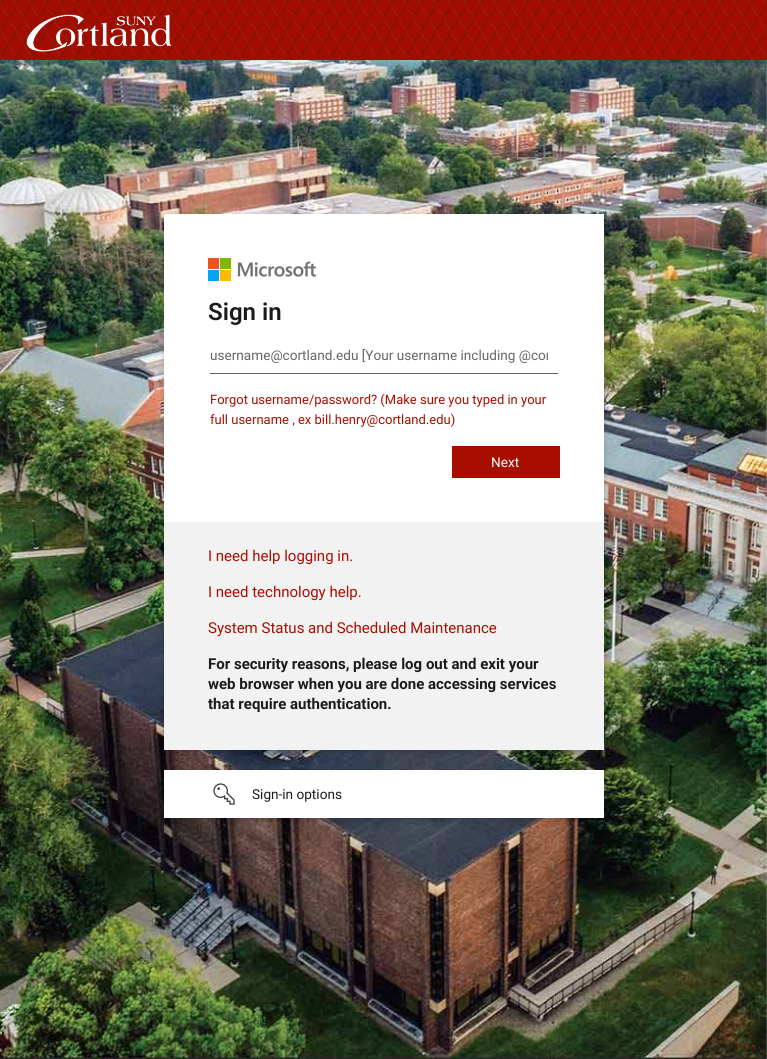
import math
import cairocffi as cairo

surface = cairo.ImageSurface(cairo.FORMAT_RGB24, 767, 1059)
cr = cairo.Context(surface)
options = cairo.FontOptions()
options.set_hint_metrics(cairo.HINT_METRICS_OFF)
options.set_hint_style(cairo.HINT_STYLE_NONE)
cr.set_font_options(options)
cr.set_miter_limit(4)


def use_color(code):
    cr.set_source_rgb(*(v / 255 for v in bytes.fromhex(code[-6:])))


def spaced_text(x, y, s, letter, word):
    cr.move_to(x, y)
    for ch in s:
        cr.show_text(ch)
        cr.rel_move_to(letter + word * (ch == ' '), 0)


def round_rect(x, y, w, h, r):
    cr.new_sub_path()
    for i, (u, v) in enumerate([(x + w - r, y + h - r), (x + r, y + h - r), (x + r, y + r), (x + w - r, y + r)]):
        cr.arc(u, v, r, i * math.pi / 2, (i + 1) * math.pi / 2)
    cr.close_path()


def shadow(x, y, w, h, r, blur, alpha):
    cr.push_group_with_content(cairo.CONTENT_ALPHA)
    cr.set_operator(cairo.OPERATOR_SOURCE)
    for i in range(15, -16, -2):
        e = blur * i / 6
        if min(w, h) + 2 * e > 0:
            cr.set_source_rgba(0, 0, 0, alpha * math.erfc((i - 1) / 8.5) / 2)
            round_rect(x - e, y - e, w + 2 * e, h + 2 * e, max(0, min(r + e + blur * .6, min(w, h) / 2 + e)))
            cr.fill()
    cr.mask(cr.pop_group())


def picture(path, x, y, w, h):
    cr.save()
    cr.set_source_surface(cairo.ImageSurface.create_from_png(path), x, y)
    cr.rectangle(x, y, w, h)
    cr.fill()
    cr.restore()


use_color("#ffffff")
cr.paint()
picture("img1.png", 0, 60, 767, 999)
picture("img2.png", 0, 0, 767, 60)
picture("img3.png", 26, 14, 146, 38)
use_color("#000000")
shadow(164, 216, 440, 536, 0, 3, 0.2)
use_color("#ffffff")
cr.rectangle(164, 214, 440, 308)
cr.fill()
picture("img4.png", 208, 258, 108, 23)
cr.select_font_face("Roboto SemiBold")
cr.set_font_size(24)
use_color("#1b1b1b")
cr.move_to(208, 320)
cr.show_text("Sign in")
use_color("#666666")
cr.rectangle(210, 373, 348, 1)
cr.fill()
cr.save()
cr.rectangle(210, 347, 338, 16)
cr.clip()
cr.select_font_face("Roboto")
cr.set_font_size(13.6)
cr.move_to(210, 360)
cr.show_text("username@cortland.edu [Your username including @cor")
cr.restore()
cr.select_font_face("Roboto")
cr.set_font_size(13)
use_color("#a80e00")
cr.move_to(210, 404)
cr.show_text("Forgot username/password? (Make sure you typed in your")
cr.move_to(210, 424)
cr.show_text("full username , ex bill.henry@cortland.edu)")
cr.rectangle(452, 446, 108, 32)
cr.fill()
cr.set_font_size(13.6)
use_color("#ffffff")
cr.move_to(491, 467)
cr.show_text("Next")
use_color("#f2f2f2")
cr.rectangle(164, 522, 440, 228)
cr.fill()
cr.set_font_size(15)
use_color("#a80e00")
cr.move_to(208, 561)
cr.show_text("I need help logging in.")
cr.move_to(208, 597)
cr.show_text("I need technology help.")
cr.move_to(208, 633)
cr.show_text("System Status and Scheduled Maintenance")
cr.select_font_face("Roboto", cairo.FONT_SLANT_NORMAL, cairo.FONT_WEIGHT_BOLD)
use_color("#1b1b1b")
cr.move_to(208, 669)
cr.show_text("For security reasons, please log out and exit your")
cr.move_to(208, 689)
cr.show_text("web browser when you are done accessing services")
cr.move_to(208, 709)
cr.show_text("that require authentication.")
use_color("#000000")
shadow(164, 772, 440, 48, 0, 3, 0.2)
use_color("#ffffff")
cr.rectangle(164, 770, 440, 48)
cr.fill()
picture("img5.png", 213, 783, 22, 22)
cr.select_font_face("Roboto")
cr.set_font_size(13.6)
use_color("#1b1b1b")
cr.move_to(252, 799)
cr.show_text("Sign-in options")
cr.select_font_face("Roboto SemiBold")
cr.set_font_size(16)
use_color("#a80e00")
spaced_text(736, 1047, "...", 3, 0)
surface.write_to_png("result.png")
